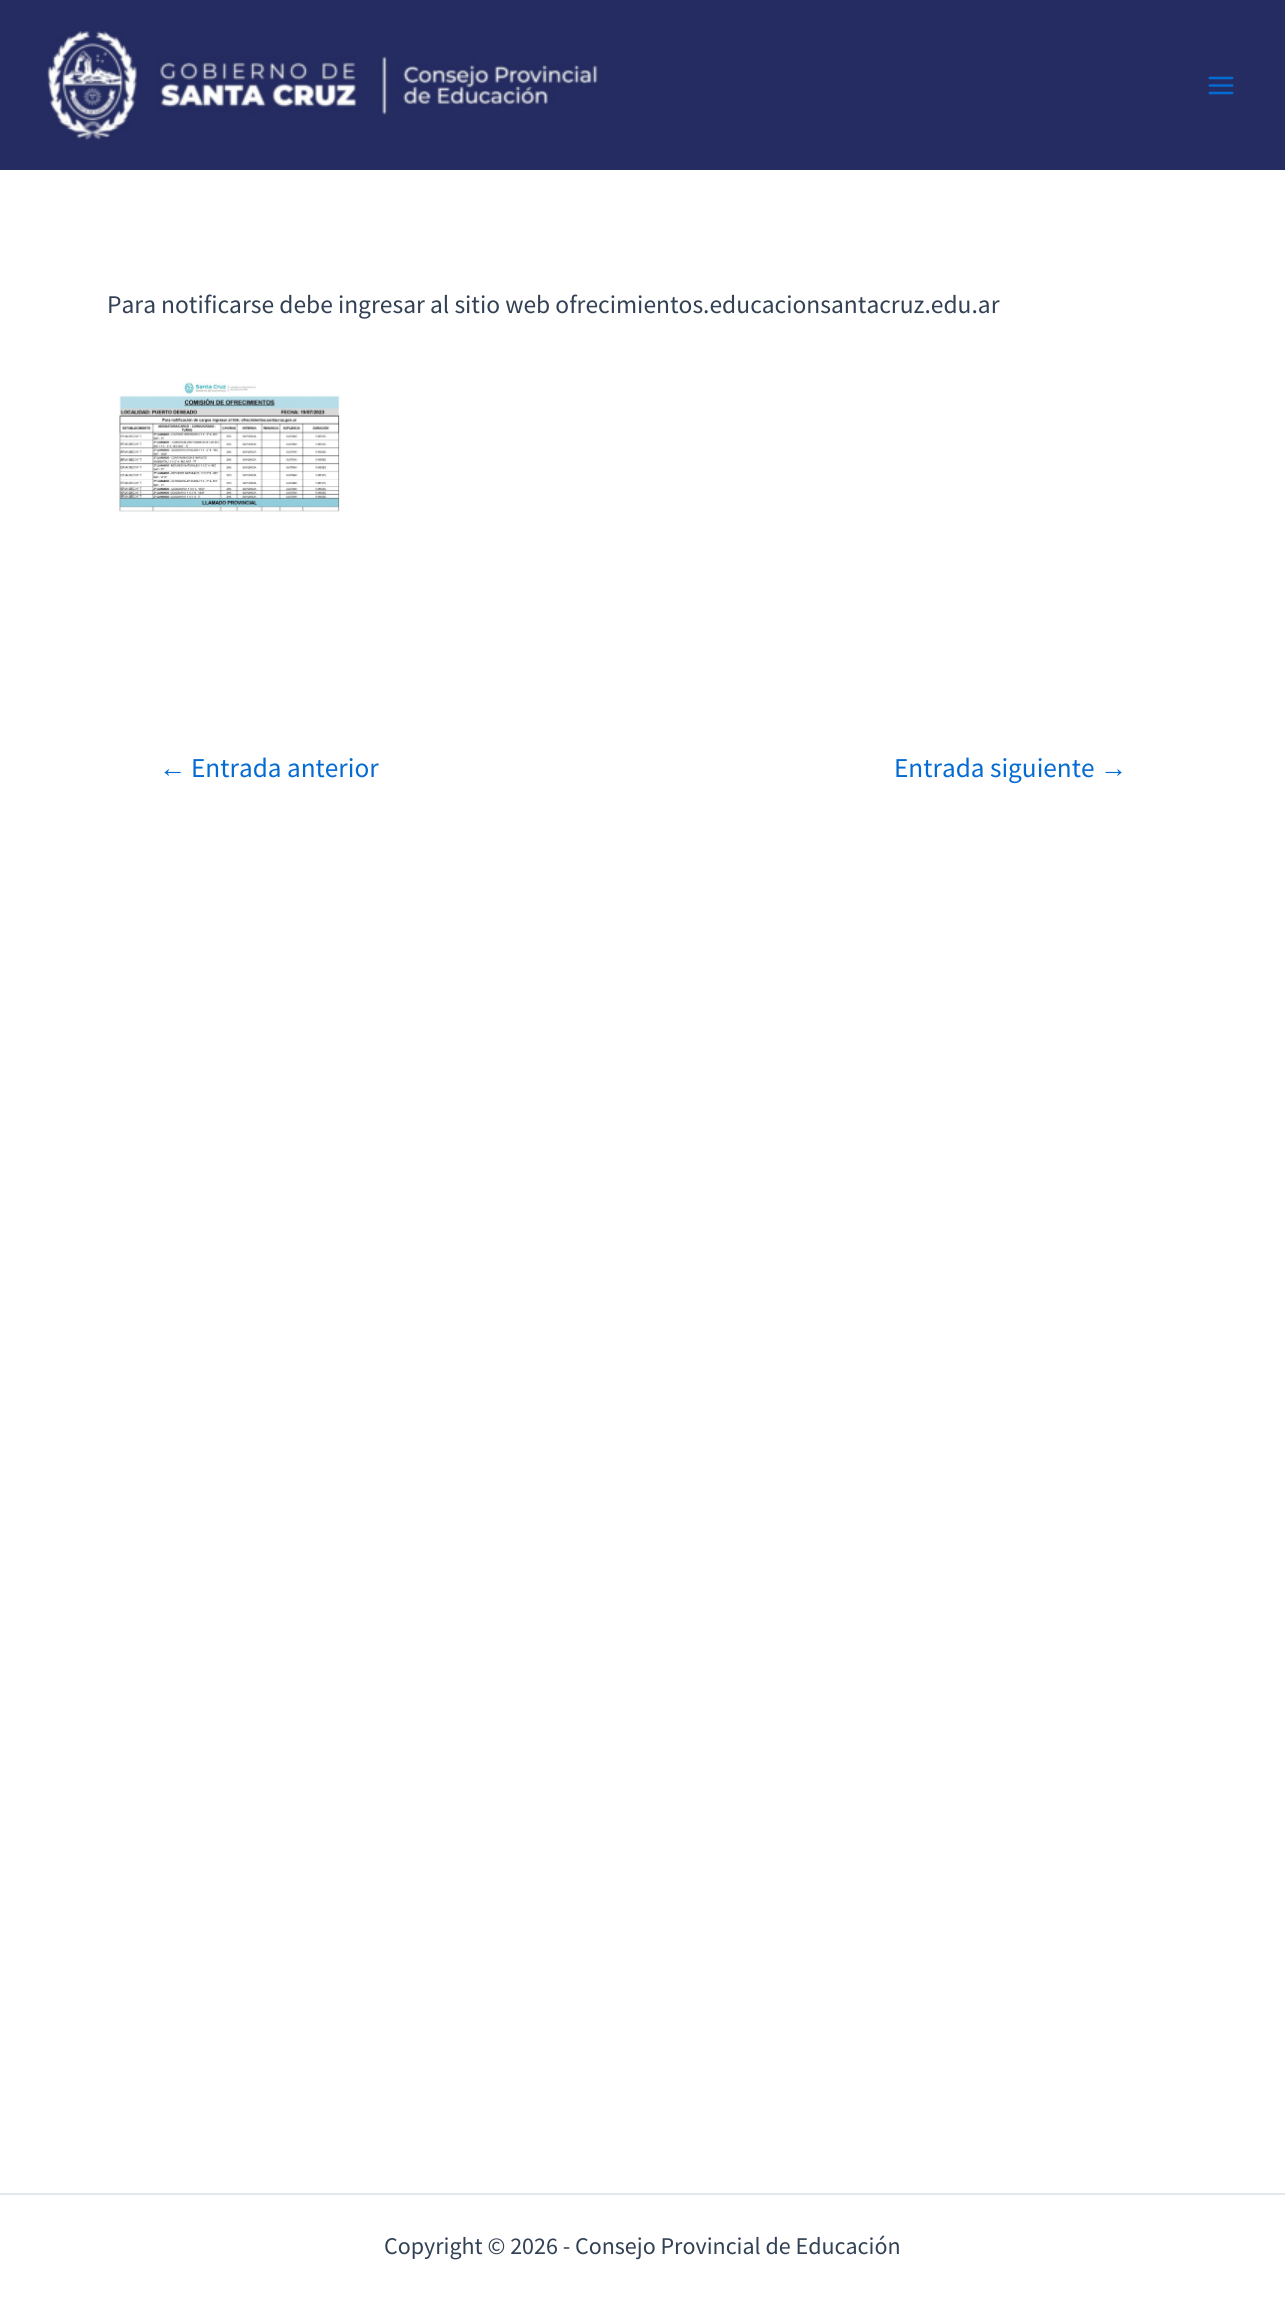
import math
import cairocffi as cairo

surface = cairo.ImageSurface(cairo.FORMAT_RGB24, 1285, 2312)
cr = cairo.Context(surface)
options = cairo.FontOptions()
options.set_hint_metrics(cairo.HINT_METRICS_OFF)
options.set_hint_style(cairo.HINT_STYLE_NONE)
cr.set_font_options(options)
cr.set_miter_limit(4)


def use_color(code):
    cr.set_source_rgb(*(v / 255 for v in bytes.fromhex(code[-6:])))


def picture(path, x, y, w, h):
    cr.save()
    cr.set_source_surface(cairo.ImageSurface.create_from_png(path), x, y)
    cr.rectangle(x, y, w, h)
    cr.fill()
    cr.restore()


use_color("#ffffff")
cr.paint()
use_color("#252c62")
cr.rectangle(0, 0, 1285, 170)
cr.fill()
picture("img1.png", 47, 31, 551, 109)
picture("img2.png", 1208, 76, 26, 19)
cr.select_font_face("Source Sans Pro")
cr.set_font_size(25.5)
use_color("#334155")
cr.move_to(107, 313)
cr.show_text("Para notificarse debe ingresar al sitio web ofrecimientos.educacionsantacruz.edu.ar")
picture("img3.png", 119, 381, 221, 131)
cr.select_font_face("Liberation Sans")
cr.set_font_size(27.25)
use_color("#046bd2")
cr.move_to(159, 777)
cr.show_text("←")
cr.select_font_face("Source Sans Pro")
cr.move_to(191, 777)
cr.show_text("Entrada anterior")
cr.move_to(894, 777)
cr.show_text("Entrada siguiente")
cr.select_font_face("Liberation Sans")
cr.move_to(1100, 777)
cr.show_text("→")
use_color("#e2e8f0")
cr.rectangle(0, 2193, 1285, 2)
cr.fill()
cr.select_font_face("Source Sans Pro")
cr.set_font_size(24)
use_color("#334155")
cr.move_to(384, 2254)
cr.show_text("Copyright © 2026 - Consejo Provincial de Educación")
surface.write_to_png("result.png")
